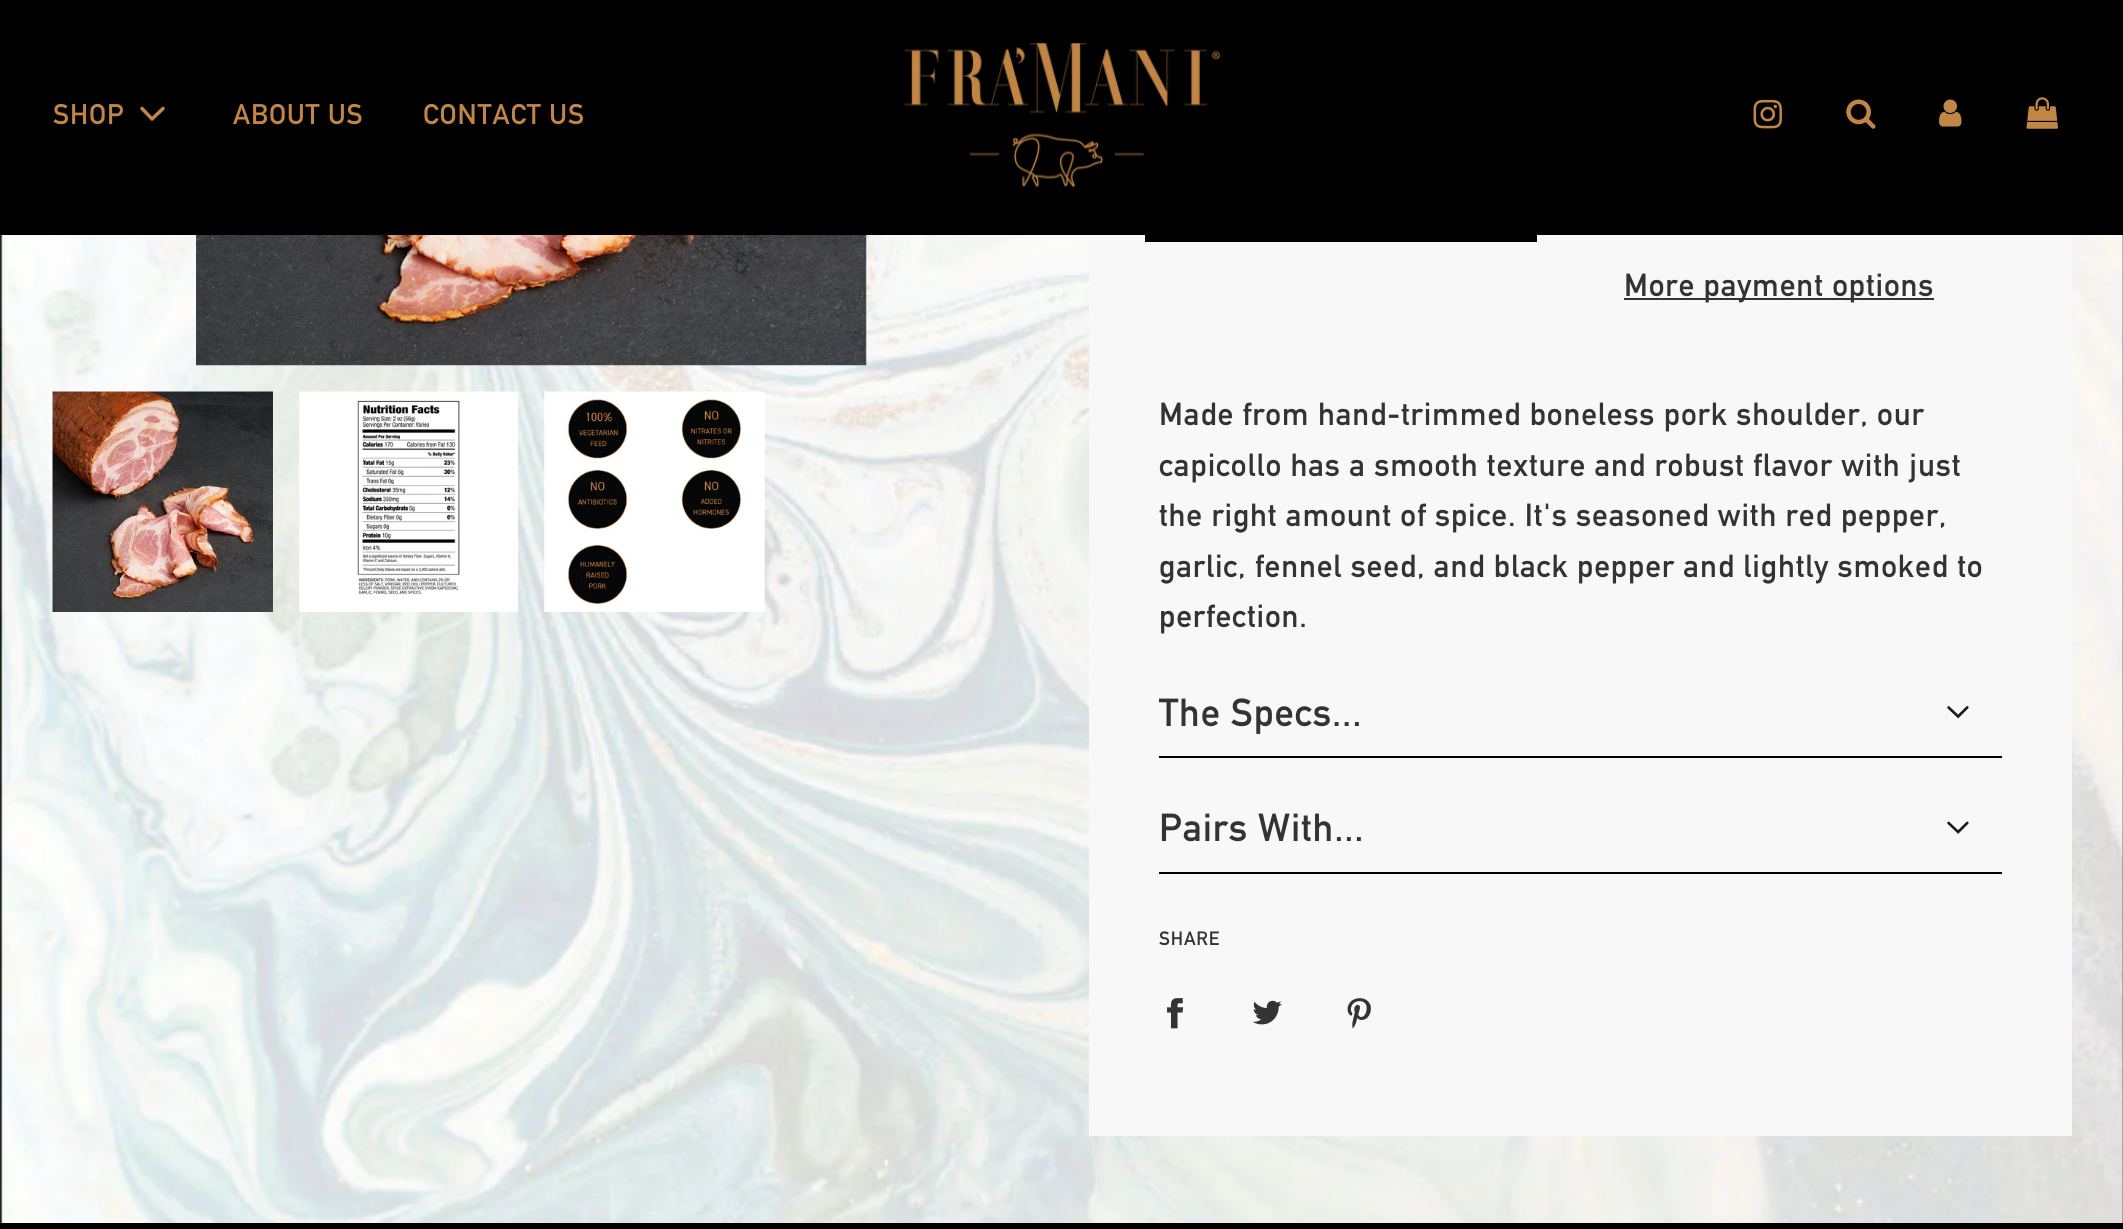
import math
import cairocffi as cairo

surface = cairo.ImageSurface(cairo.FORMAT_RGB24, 2123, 1229)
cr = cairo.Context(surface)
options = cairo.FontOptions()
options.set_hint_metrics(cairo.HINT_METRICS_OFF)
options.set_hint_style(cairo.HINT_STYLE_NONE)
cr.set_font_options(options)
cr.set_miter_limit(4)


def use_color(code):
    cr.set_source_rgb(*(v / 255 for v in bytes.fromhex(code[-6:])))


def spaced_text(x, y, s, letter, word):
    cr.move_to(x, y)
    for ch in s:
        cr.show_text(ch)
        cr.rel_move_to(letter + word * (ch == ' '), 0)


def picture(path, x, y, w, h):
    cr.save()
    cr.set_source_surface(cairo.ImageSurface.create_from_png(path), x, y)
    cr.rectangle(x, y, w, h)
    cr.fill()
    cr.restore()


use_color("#ffffff")
cr.paint()
picture("img1.png", 0, 235, 2123, 988)
use_color("#f8f8f8")
cr.rectangle(1089, 235, 983, 901)
cr.fill()
cr.rectangle(1152, 144, 378, 91)
use_color("#000000")
cr.set_line_width(14)
cr.stroke()
cr.rectangle(0, 0, 2123, 235)
cr.fill()
cr.select_font_face("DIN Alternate", cairo.FONT_SLANT_NORMAL, cairo.FONT_WEIGHT_BOLD)
cr.set_font_size(28)
use_color("#c18545")
spaced_text(53, 124, "SHOP", 0.9, 0)
cr.new_path()
cr.move_to(142, 108.5)
cr.line_to(152, 119)
cr.line_to(163, 108.5)
cr.set_line_width(3.5)
cr.set_line_cap(cairo.LINE_CAP_ROUND)
cr.set_line_join(cairo.LINE_JOIN_ROUND)
cr.stroke()
spaced_text(233, 124, "ABOUT US", 0.9, 0)
spaced_text(423, 124, "CONTACT US", 0.9, 0)
picture("img2.png", 904, 43, 316, 144)
picture("img3.png", 1753, 99, 29, 30)
picture("img4.png", 1846, 99, 30, 30)
picture("img5.png", 1939, 99, 23, 28)
picture("img6.png", 2026, 97, 32, 32)
picture("img7.png", 196, 235, 671, 131)
picture("img8.png", 52, 391, 221, 221)
picture("img9.png", 299, 391, 219, 221)
picture("img10.png", 544, 391, 221, 221)
use_color("#333333")
cr.rectangle(1624, 298, 310, 2)
cr.fill()
cr.set_font_size(31.5)
spaced_text(1624, 296, "More payment options", 0.85, 0)
spaced_text(1159, 425, "Made from hand-trimmed boneless pork shoulder, our", 0.85, 0)
spaced_text(1159, 476, "capicollo has a smooth texture and robust flavor with just", 0.85, 0)
spaced_text(1159, 526, "the right amount of spice. It's seasoned with red pepper,", 0.85, 0)
spaced_text(1159, 577, "garlic, fennel seed, and black pepper and lightly smoked to", 0.85, 0)
spaced_text(1159, 627, "perfection.", 0.85, 0)
use_color("#000000")
cr.rectangle(1159, 756, 843, 2)
cr.fill()
cr.save()
cr.rectangle(1159, 364, 843, 536)
cr.clip()
cr.set_font_size(38.5)
use_color("#333333")
spaced_text(1159, 726, "The Specs...", 0.85, 0)
cr.restore()
picture("img11.png", 1947, 706, 22, 13)
cr.rectangle(1159, 872, 843, 2)
cr.fill()
cr.set_font_size(38.5)
use_color("#333333")
spaced_text(1159, 841, "Pairs With...", 0.85, 0)
picture("img12.png", 1947, 821, 22, 13)
cr.set_font_size(19)
spaced_text(1159, 945, "SHARE", 0.85, 0)
picture("img13.png", 1167, 998, 17, 31)
picture("img14.png", 1252, 1000, 30, 25)
picture("img15.png", 1347, 998, 24, 31)
use_color("#000000")
cr.rectangle(0, 1223, 2123, 6)
cr.fill()
surface.write_to_png("result.png")
